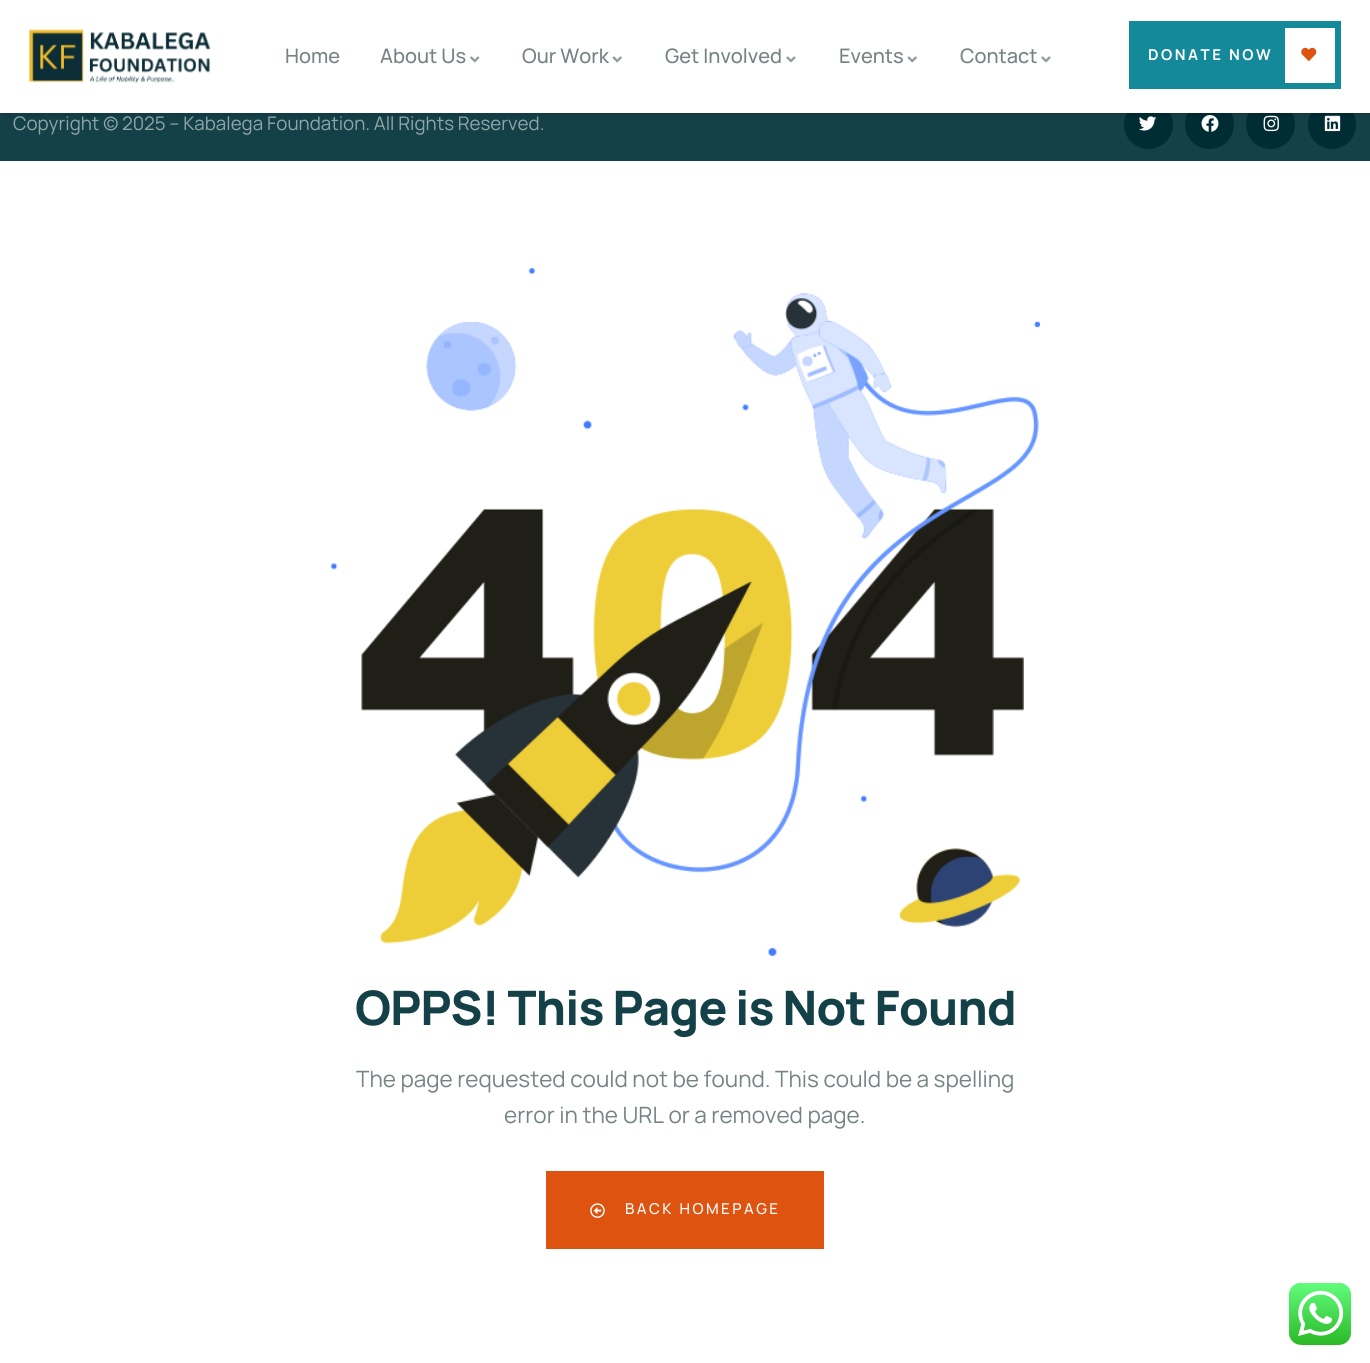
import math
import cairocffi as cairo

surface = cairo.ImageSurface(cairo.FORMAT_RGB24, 1370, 1363)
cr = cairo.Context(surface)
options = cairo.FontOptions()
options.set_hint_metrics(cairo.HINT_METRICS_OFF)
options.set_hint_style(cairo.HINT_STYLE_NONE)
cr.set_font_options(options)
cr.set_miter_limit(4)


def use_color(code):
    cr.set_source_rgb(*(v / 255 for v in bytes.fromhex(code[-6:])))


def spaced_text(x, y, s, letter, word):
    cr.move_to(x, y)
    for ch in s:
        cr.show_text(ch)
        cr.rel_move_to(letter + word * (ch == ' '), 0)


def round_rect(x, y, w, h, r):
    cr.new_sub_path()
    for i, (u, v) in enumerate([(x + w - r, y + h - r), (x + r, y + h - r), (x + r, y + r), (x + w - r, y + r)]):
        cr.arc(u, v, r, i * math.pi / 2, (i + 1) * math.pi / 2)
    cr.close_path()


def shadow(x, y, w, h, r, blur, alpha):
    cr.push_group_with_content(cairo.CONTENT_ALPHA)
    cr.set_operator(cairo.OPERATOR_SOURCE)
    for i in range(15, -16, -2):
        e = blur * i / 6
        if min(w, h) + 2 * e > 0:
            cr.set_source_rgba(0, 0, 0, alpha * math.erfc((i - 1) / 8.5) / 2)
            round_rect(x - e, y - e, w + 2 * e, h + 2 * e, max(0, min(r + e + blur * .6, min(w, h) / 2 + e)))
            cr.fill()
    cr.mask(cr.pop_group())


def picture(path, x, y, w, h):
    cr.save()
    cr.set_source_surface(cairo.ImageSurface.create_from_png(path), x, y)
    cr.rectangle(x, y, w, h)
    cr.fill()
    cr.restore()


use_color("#ffffff")
cr.paint()
use_color("#144047")
cr.rectangle(0, 113, 1370, 48)
cr.fill()
use_color("#002c33")
cr.arc(1148.5, 124.5, 24.5, 0, 2 * math.pi)
cr.fill()
picture("img6.png", 1139, 116, 18, 15)
cr.arc(1209.5, 124.5, 24.5, 0, 2 * math.pi)
cr.fill()
picture("img7.png", 1201, 115, 18, 17)
cr.arc(1270.5, 124.5, 24.5, 0, 2 * math.pi)
cr.fill()
picture("img8.png", 1263, 115, 16, 17)
round_rect(1308, 100, 48, 49, 24)
cr.fill()
picture("img9.png", 1324, 115, 17, 17)
use_color("#000000")
shadow(3, 4, 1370, 112, 0, 2, 0.1)
use_color("#ffffff")
cr.rectangle(0, 1, 1370, 112)
cr.fill()
picture("img1.png", 29, 29, 182, 55)
cr.select_font_face("Manrope Medium")
cr.set_font_size(20)
use_color("#768385")
cr.move_to(285, 63)
cr.show_text("Home")
cr.move_to(380, 63)
cr.show_text("About Us")
picture("img2.png", 470, 56, 10, 7)
cr.move_to(522, 63)
cr.show_text("Our Work")
picture("img3.png", 612, 56, 10, 7)
cr.move_to(665, 63)
cr.show_text("Get Involved")
picture("img4.png", 786, 56, 10, 7)
cr.move_to(839, 63)
cr.show_text("Events")
picture("img3.png", 907, 56, 10, 7)
cr.move_to(960, 63)
cr.show_text("Contact")
picture("img4.png", 1041, 56, 10, 7)
use_color("#138999")
cr.rectangle(1129, 21, 212, 68)
cr.fill()
cr.select_font_face("Manrope", cairo.FONT_SLANT_NORMAL, cairo.FONT_WEIGHT_BOLD)
cr.set_font_size(15)
use_color("#ffffff")
spaced_text(1148, 60, "DONATE NOW", 2.5, 0)
cr.rectangle(1285, 28, 50, 55)
cr.fill()
picture("img5.png", 1301, 47, 16, 14)
cr.select_font_face("Manrope")
cr.set_font_size(18.75)
use_color("#8fa6aa")
cr.move_to(13, 130)
cr.show_text("Copyright © 2025 – Kabalega Foundation. All Rights Reserved.")
picture("img10.png", 331, 268, 709, 688)
cr.select_font_face("Manrope ExtraBold")
cr.set_font_size(47.5)
use_color("#144047")
spaced_text(355, 1025, "OPPS! This Page is Not Found", -0.75, 0)
cr.select_font_face("Manrope")
cr.set_font_size(22.5)
use_color("#768385")
cr.move_to(356, 1087)
cr.show_text("The page requested could not be found. This could be a spelling")
cr.move_to(504, 1123)
cr.show_text("error in the URL or a removed page.")
use_color("#df5311")
cr.rectangle(546, 1171, 278, 78)
cr.fill()
picture("img11.png", 590, 1203, 15, 15)
cr.select_font_face("Manrope Medium")
cr.set_font_size(15)
use_color("#ffffff")
spaced_text(625, 1214, "BACK HOMEPAGE", 2.5, 0)
picture("img12.png", 1289, 1283, 62, 62)
surface.write_to_png("result.png")
